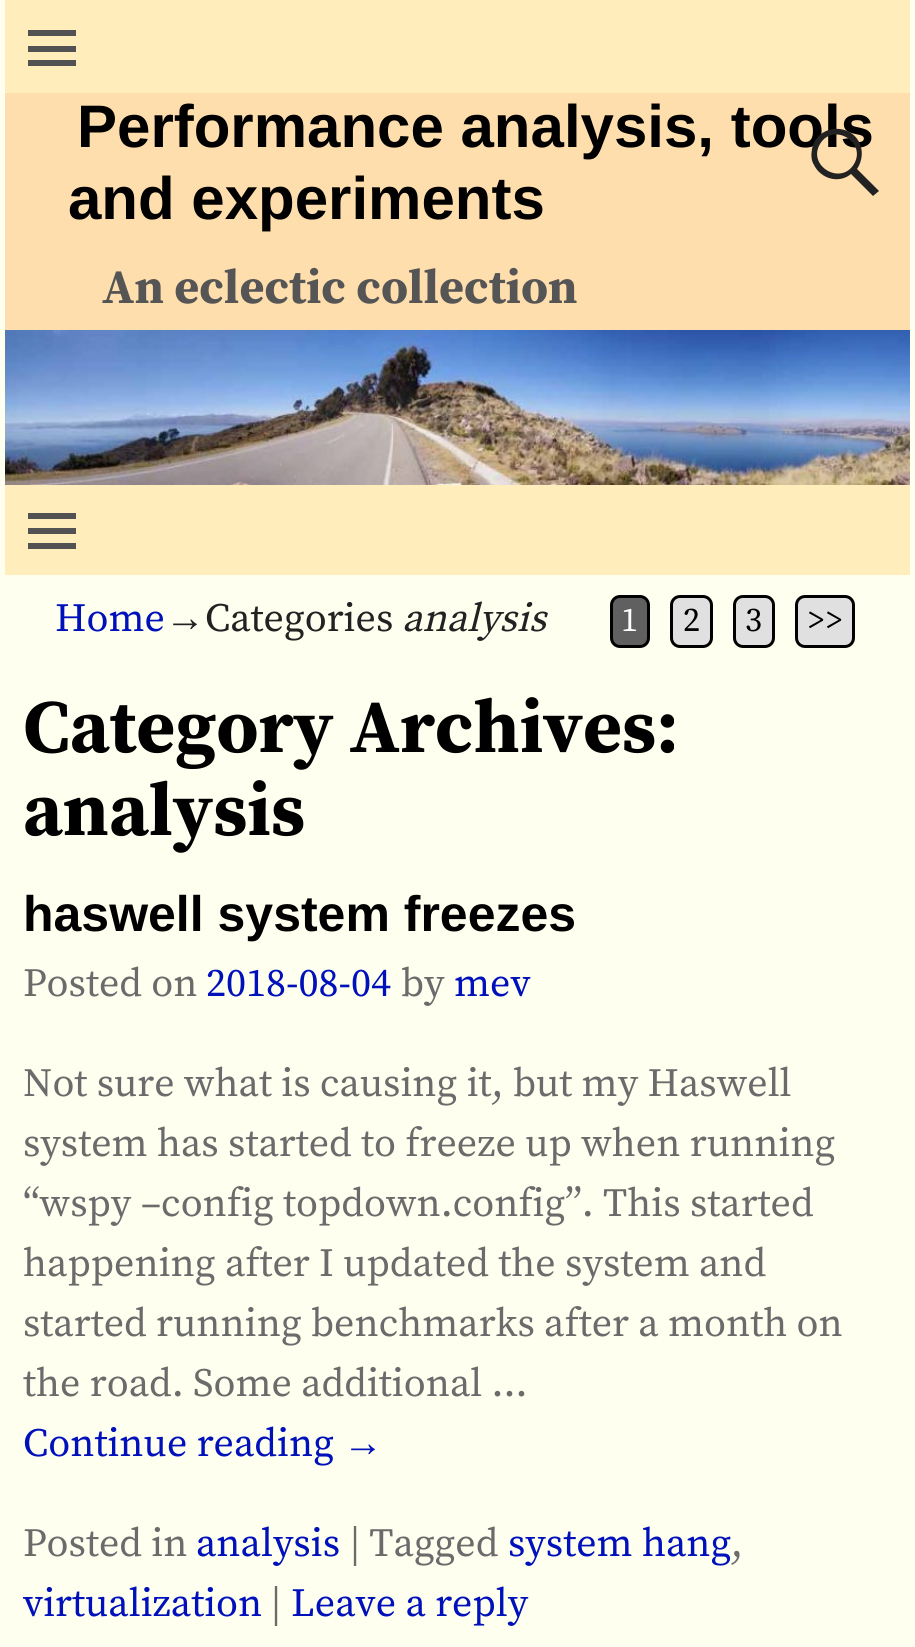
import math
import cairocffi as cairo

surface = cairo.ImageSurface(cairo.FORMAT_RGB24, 915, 1647)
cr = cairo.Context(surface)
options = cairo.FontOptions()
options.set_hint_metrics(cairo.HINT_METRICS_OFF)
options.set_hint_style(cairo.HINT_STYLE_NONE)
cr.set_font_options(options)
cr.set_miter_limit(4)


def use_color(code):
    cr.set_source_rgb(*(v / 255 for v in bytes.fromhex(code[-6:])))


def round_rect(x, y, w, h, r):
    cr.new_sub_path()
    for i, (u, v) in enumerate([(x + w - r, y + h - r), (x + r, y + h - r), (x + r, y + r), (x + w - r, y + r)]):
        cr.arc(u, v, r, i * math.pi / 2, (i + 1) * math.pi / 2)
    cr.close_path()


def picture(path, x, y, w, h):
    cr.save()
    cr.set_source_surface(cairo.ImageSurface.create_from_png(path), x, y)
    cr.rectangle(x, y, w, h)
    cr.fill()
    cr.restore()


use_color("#fffff0")
cr.paint()
use_color("#ffdead")
cr.rectangle(5, 93, 905, 237)
cr.fill()
use_color("#ffeebb")
cr.rectangle(5, 0, 905, 93)
cr.fill()
use_color("#525252")
cr.new_path()
cr.move_to(28, 66)
cr.line_to(28, 60)
cr.line_to(76, 60)
cr.line_to(76, 66)
cr.close_path()
cr.move_to(28, 30)
cr.line_to(76, 30)
cr.line_to(76, 36)
cr.line_to(28, 36)
cr.close_path()
cr.move_to(28, 52)
cr.line_to(28, 46)
cr.line_to(76, 46)
cr.line_to(76, 52)
cr.close_path()
cr.fill()
cr.select_font_face("Liberation Sans", cairo.FONT_SLANT_NORMAL, cairo.FONT_WEIGHT_BOLD)
cr.set_font_size(60)
use_color("#000000")
cr.move_to(77, 147)
cr.show_text("Performance analysis, tools")
cr.move_to(68, 219)
cr.show_text("and experiments")
use_color("#222222")
cr.new_path()
cr.move_to(879, 191)
cr.line_to(873, 196)
cr.line_to(851, 174)
cr.curve_to(839, 184, 821, 179, 814, 165)
cr.curve_to(811, 160, 811, 155, 812, 149)
cr.curve_to(817, 123, 854, 122, 861, 147)
cr.curve_to(863, 155, 861, 163, 857, 169)
cr.close_path()
cr.move_to(820, 144)
cr.curve_to(807, 166, 841, 186, 854, 164)
cr.curve_to(867, 142, 833, 122, 820, 144)
cr.close_path()
cr.fill()
cr.select_font_face("Source Serif Pro", cairo.FONT_SLANT_NORMAL, cairo.FONT_WEIGHT_BOLD)
cr.set_font_size(48)
use_color("#555555")
cr.move_to(102, 303)
cr.show_text("An eclectic collection")
picture("img1.png", 5, 330, 905, 155)
use_color("#ffeebb")
cr.rectangle(5, 485, 905, 90)
cr.fill()
use_color("#525252")
cr.new_path()
cr.move_to(28, 549)
cr.line_to(28, 543)
cr.line_to(76, 543)
cr.line_to(76, 549)
cr.close_path()
cr.move_to(28, 513)
cr.line_to(76, 513)
cr.line_to(76, 519)
cr.line_to(28, 519)
cr.close_path()
cr.move_to(28, 534)
cr.line_to(28, 528)
cr.line_to(76, 528)
cr.line_to(76, 534)
cr.close_path()
cr.fill()
cr.select_font_face("Source Serif Pro")
cr.set_font_size(40)
use_color("#0011bb")
cr.move_to(55, 631)
cr.show_text("Home")
cr.select_font_face("Liberation Serif")
use_color("#222222")
cr.move_to(165, 631)
cr.show_text("→")
cr.select_font_face("Source Serif Pro")
cr.move_to(205, 631)
cr.show_text("Categories")
cr.select_font_face("Source Serif Pro", cairo.FONT_SLANT_ITALIC)
cr.move_to(402, 631)
cr.show_text("analysis")
use_color("#606060")
round_rect(611.5, 596.5, 37, 50, 8.5)
cr.fill_preserve()
use_color("#000000")
cr.set_line_width(3)
cr.stroke()
cr.select_font_face("Source Serif Pro")
cr.set_font_size(34)
use_color("#ffffff")
cr.move_to(621, 631)
cr.show_text("1")
use_color("#e0e0e0")
round_rect(671.5, 596.5, 40, 50, 8.5)
cr.fill_preserve()
use_color("#000000")
cr.stroke()
cr.move_to(683, 631)
cr.show_text("2")
use_color("#e0e0e0")
round_rect(734.5, 596.5, 39, 50, 8.5)
cr.fill_preserve()
use_color("#000000")
cr.stroke()
cr.move_to(745, 631)
cr.show_text("3")
use_color("#e0e0e0")
round_rect(796.5, 596.5, 57, 50, 8.5)
cr.fill_preserve()
use_color("#000000")
cr.stroke()
cr.move_to(807, 631)
cr.show_text(">>")
cr.select_font_face("Source Serif Pro", cairo.FONT_SLANT_NORMAL, cairo.FONT_WEIGHT_BOLD)
cr.set_font_size(75)
cr.move_to(23, 752)
cr.show_text("Category Archives:")
cr.move_to(23, 835)
cr.show_text("analysis")
cr.select_font_face("Liberation Sans", cairo.FONT_SLANT_NORMAL, cairo.FONT_WEIGHT_BOLD)
cr.set_font_size(50)
cr.move_to(23, 931)
cr.show_text("haswell system freezes")
cr.select_font_face("Source Serif Pro")
cr.set_font_size(40)
use_color("#6b6b6b")
cr.move_to(23, 996)
cr.show_text("Posted on")
use_color("#0011bb")
cr.move_to(206, 996)
cr.show_text("2018-08-04")
use_color("#6b6b6b")
cr.move_to(401, 996)
cr.show_text("by")
use_color("#0011bb")
cr.move_to(454, 996)
cr.show_text("mev")
use_color("#6b6b6b")
cr.move_to(23, 1096)
cr.show_text("Not sure what is causing it, but my Haswell")
cr.move_to(23, 1156)
cr.show_text("system has started to freeze up when running")
cr.move_to(23, 1216)
cr.show_text("“wspy –config topdown.config”. This started")
cr.move_to(23, 1276)
cr.show_text("happening after I updated the system and")
cr.move_to(23, 1336)
cr.show_text("started running benchmarks after a month on")
cr.move_to(23, 1396)
cr.show_text("the road. Some additional …")
use_color("#0011bb")
cr.move_to(23, 1456)
cr.show_text("Continue reading")
cr.select_font_face("Liberation Serif")
cr.move_to(343, 1456)
cr.show_text("→")
cr.select_font_face("Source Serif Pro")
use_color("#6b6b6b")
cr.move_to(23, 1556)
cr.show_text("Posted in")
use_color("#0011bb")
cr.move_to(196, 1556)
cr.show_text("analysis")
use_color("#6b6b6b")
cr.move_to(350, 1556)
cr.show_text("| Tagged")
use_color("#0011bb")
cr.move_to(508, 1556)
cr.show_text("system hang")
use_color("#6b6b6b")
cr.move_to(731, 1556)
cr.show_text(",")
use_color("#0011bb")
cr.move_to(23, 1616)
cr.show_text("virtualization")
use_color("#6b6b6b")
cr.move_to(271, 1616)
cr.show_text("|")
use_color("#0011bb")
cr.move_to(291, 1616)
cr.show_text("Leave a reply")
surface.write_to_png("result.png")
